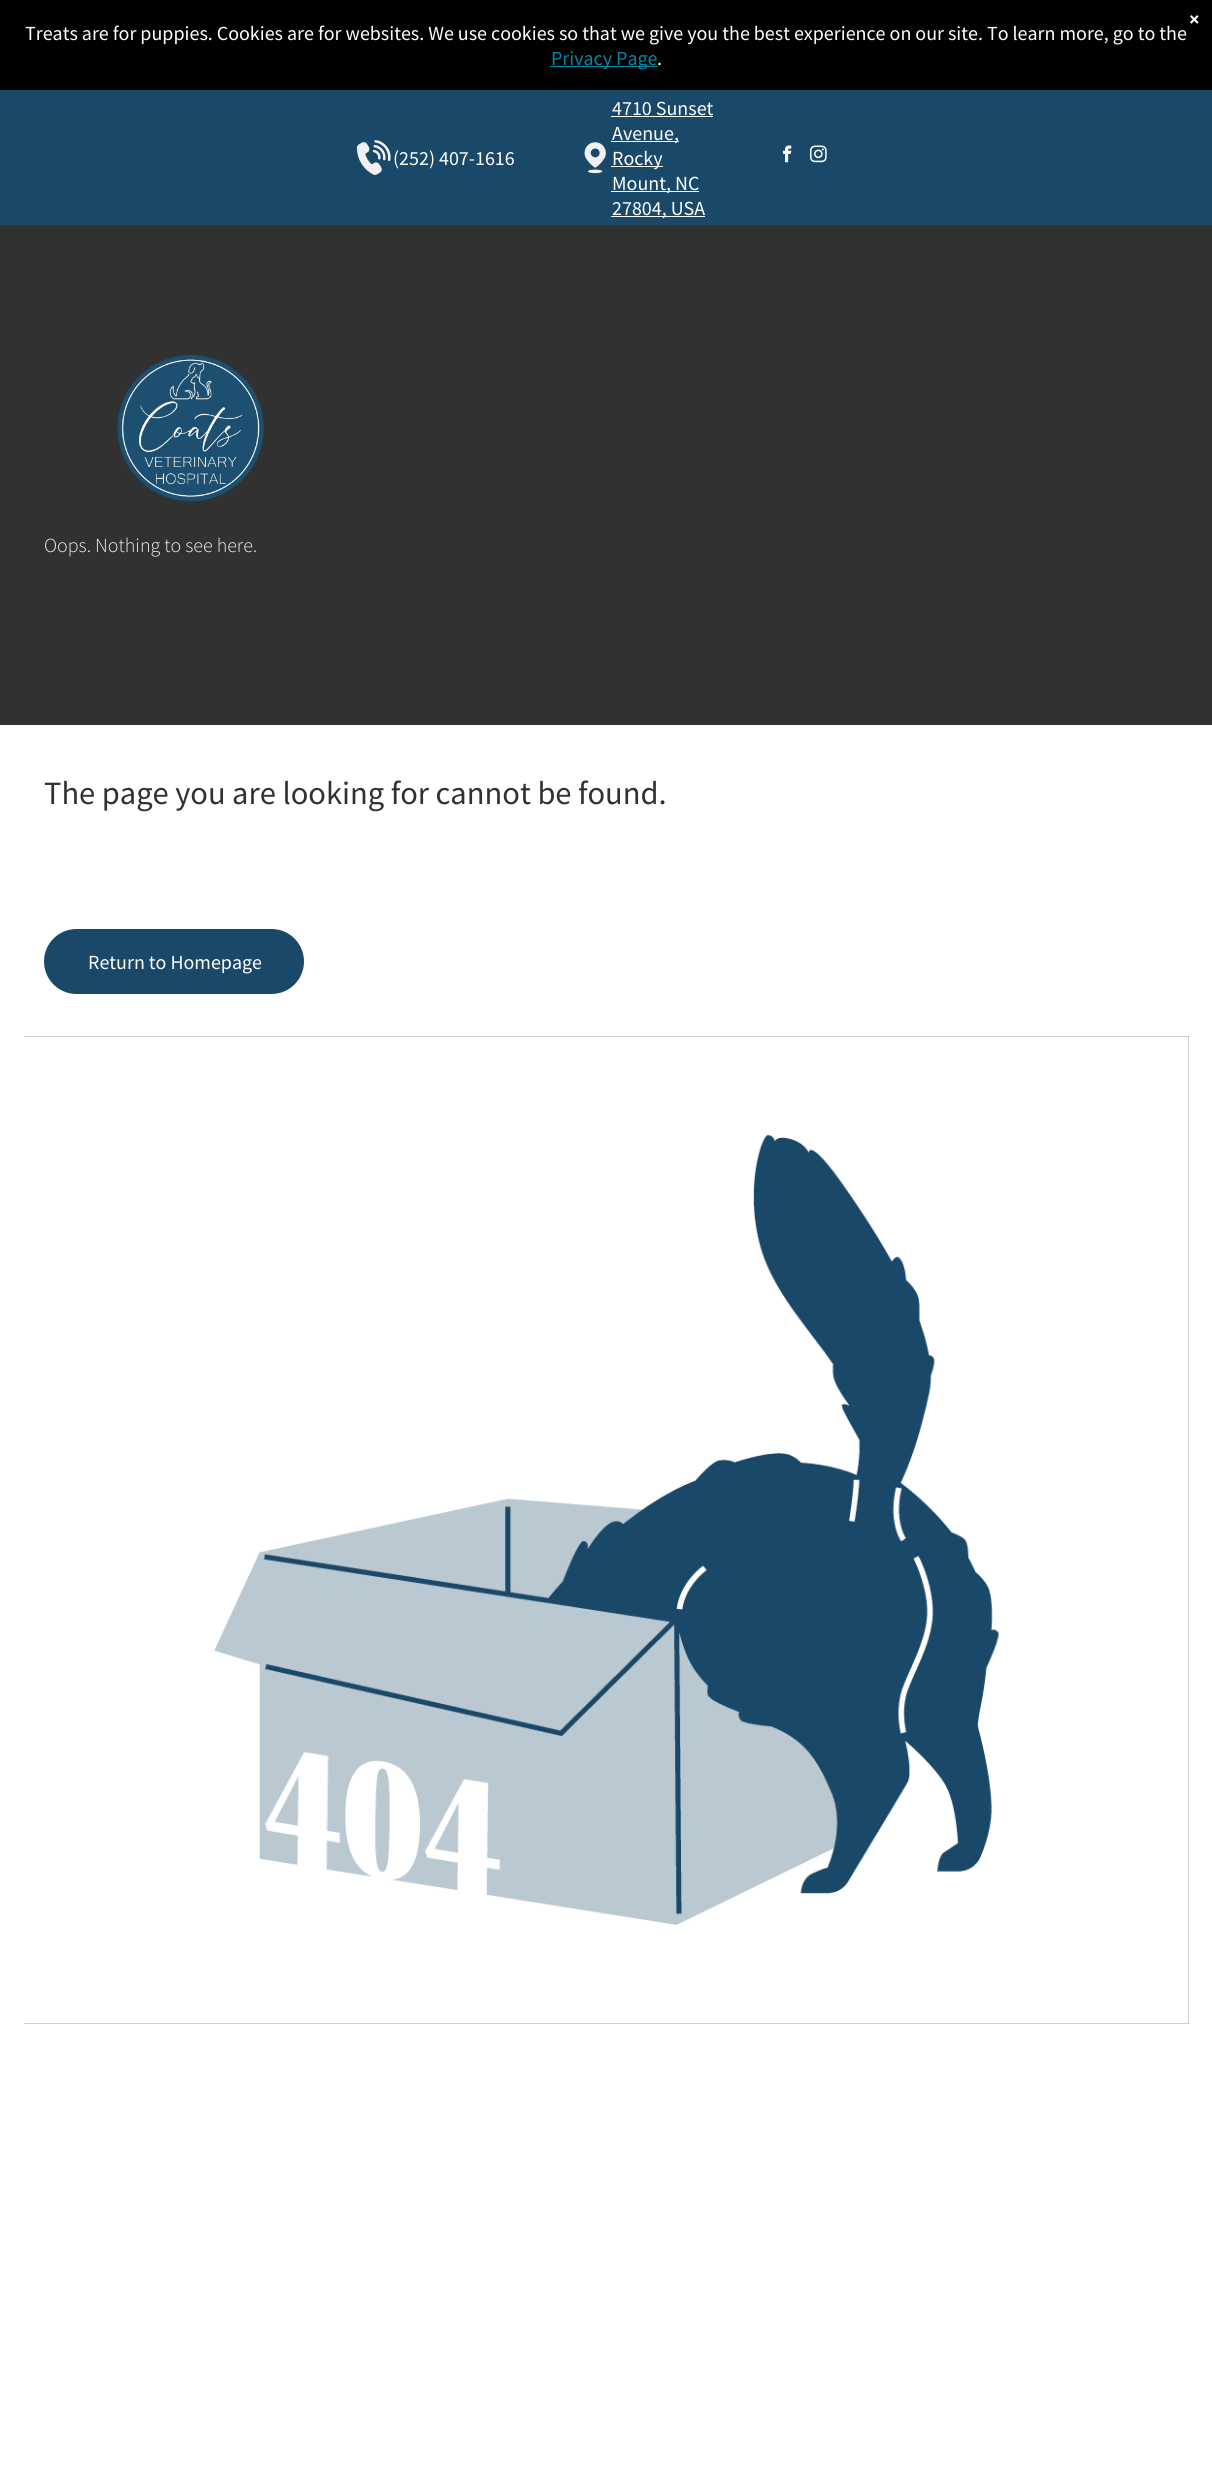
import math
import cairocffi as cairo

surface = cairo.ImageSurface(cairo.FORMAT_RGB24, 1212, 2480)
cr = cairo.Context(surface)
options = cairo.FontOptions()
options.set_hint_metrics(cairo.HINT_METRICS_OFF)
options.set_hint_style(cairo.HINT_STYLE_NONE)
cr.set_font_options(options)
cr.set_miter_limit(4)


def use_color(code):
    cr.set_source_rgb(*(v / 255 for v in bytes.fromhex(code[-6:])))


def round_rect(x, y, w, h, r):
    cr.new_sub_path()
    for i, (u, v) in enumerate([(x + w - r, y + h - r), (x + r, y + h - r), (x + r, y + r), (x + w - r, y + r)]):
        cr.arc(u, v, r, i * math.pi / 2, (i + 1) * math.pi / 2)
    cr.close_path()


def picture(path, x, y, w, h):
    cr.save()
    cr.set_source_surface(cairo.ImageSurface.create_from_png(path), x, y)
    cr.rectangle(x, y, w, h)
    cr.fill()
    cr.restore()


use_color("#ffffff")
cr.paint()
use_color("#000000")
cr.rectangle(0, 0, 1212, 90)
cr.fill()
cr.select_font_face("Source Sans Pro", cairo.FONT_SLANT_NORMAL, cairo.FONT_WEIGHT_BOLD)
cr.set_font_size(20)
use_color("#ffffff")
cr.move_to(1189, 26)
cr.show_text("×")
cr.select_font_face("Source Sans Pro")
cr.move_to(25, 40)
cr.show_text("Treats are for puppies. Cookies are for websites. We use cookies so that we give you the best experience on our site. To learn more, go to the")
use_color("#0388a6")
cr.rectangle(550, 66, 108, 1)
cr.fill()
cr.move_to(551, 65)
cr.show_text("Privacy Page")
use_color("#ffffff")
cr.move_to(657, 65)
cr.show_text(".")
use_color("#1a4868")
cr.rectangle(0, 90, 1212, 135)
cr.fill()
picture("img1.png", 356, 140, 35, 35)
use_color("#ffffff")
cr.move_to(393, 165)
cr.show_text("(252) 407-1616")
picture("img2.png", 584, 142, 22, 32)
cr.move_to(612, 115)
cr.show_text("4710 Sunset")
cr.rectangle(611, 116, 102, 1)
cr.fill()
cr.rectangle(611, 141, 68, 1)
cr.fill()
cr.move_to(612, 140)
cr.show_text("Avenue,")
cr.rectangle(611, 166, 52, 1)
cr.fill()
cr.move_to(612, 165)
cr.show_text("Rocky")
cr.rectangle(611, 191, 88, 1)
cr.fill()
cr.move_to(612, 190)
cr.show_text("Mount, NC")
cr.rectangle(611, 216, 94, 1)
cr.fill()
cr.move_to(612, 215)
cr.show_text("27804, USA")
picture("img3.png", 782, 145, 10, 18)
picture("img4.png", 810, 145, 17, 18)
use_color("#313131")
cr.rectangle(0, 225, 1212, 500)
cr.fill()
picture("img5.png", 117, 355, 147, 147)
cr.select_font_face("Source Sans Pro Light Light")
use_color("#f1f1f4")
cr.move_to(44, 552)
cr.show_text("Oops. Nothing to see here.")
cr.select_font_face("Source Sans Pro")
cr.set_font_size(32.5)
use_color("#313131")
cr.move_to(44, 804)
cr.show_text("The page you are looking for cannot be found.")
use_color("#1a4868")
round_rect(44, 929, 260, 65, 32.5)
cr.fill()
cr.set_font_size(20)
use_color("#ffffff")
cr.move_to(88, 969)
cr.show_text("Return to Homepage")
use_color("#1a4868")
cr.rectangle(24, 1036, 1165, 988)
cr.fill()
picture("img6.png", 24, 1036, 1165, 988)
surface.write_to_png("result.png")
